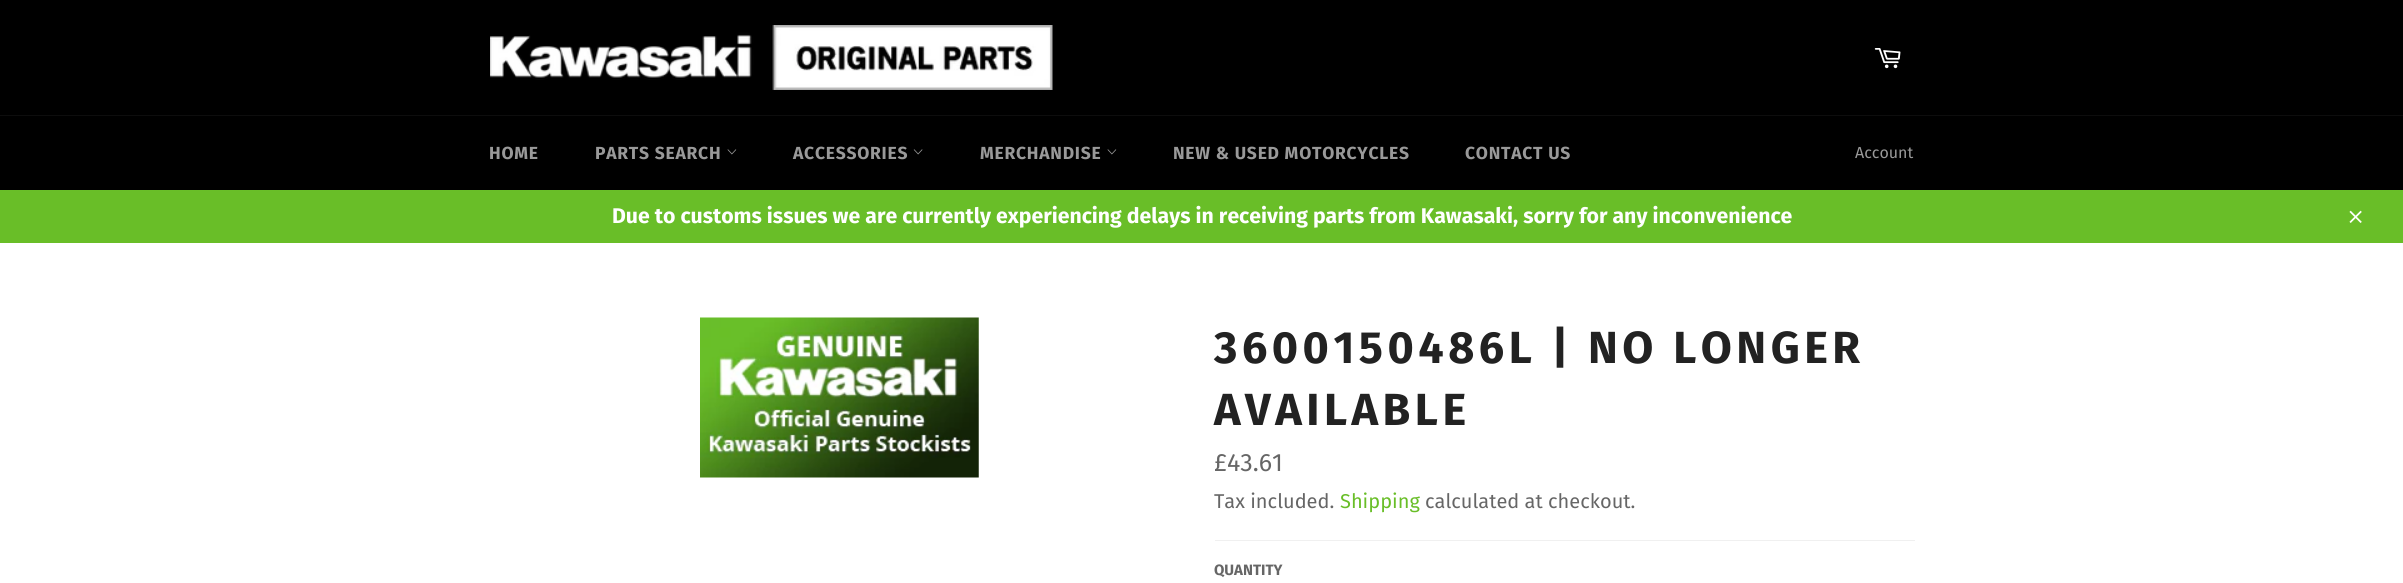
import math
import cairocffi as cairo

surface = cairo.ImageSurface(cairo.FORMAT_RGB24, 2403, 583)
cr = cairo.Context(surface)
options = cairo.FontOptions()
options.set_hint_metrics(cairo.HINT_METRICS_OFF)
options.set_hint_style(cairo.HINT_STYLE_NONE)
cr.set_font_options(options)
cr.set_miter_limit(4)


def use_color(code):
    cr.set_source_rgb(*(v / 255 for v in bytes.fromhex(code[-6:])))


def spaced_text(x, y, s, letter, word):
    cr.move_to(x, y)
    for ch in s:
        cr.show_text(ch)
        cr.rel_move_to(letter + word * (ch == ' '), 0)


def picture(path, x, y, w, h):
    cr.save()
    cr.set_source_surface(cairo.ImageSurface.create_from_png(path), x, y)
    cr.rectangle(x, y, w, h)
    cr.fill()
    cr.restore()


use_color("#69be28")
cr.paint()
use_color("#000000")
cr.rectangle(0, 0, 2403, 115)
cr.fill()
picture("img1.png", 490, 25, 563, 65)
picture("img2.png", 1874, 48, 27, 21)
cr.rectangle(0, 116, 2403, 74)
cr.fill()
use_color("#0d0d0d")
cr.rectangle(0, 115, 2403, 1)
cr.fill()
cr.select_font_face("Fira Sans", cairo.FONT_SLANT_NORMAL, cairo.FONT_WEIGHT_BOLD)
cr.set_font_size(17.5)
use_color("#999999")
spaced_text(489, 159, "HOME", 0.75, 0)
spaced_text(595, 159, "PARTS SEARCH", 0.75, 0)
picture("img3.png", 727, 149, 10, 6)
spaced_text(793, 159, "ACCESSORIES", 0.75, 0)
picture("img4.png", 913, 149, 10, 6)
spaced_text(980, 159, "MERCHANDISE", 0.75, 0)
picture("img3.png", 1107, 149, 10, 6)
spaced_text(1173, 159, "NEW & USED MOTORCYCLES", 0.75, 0)
spaced_text(1465, 159, "CONTACT US", 0.75, 0)
cr.select_font_face("Fira Sans")
cr.set_font_size(16)
cr.move_to(1855, 158)
cr.show_text("Account")
cr.select_font_face("Fira Sans", cairo.FONT_SLANT_NORMAL, cairo.FONT_WEIGHT_BOLD)
cr.set_font_size(21.25)
use_color("#ffffff")
cr.move_to(612, 223)
cr.show_text("Due to customs issues we are currently experiencing delays in receiving parts from Kawasaki, sorry for any inconvenience")
picture("img5.png", 2349, 210, 13, 13)
cr.rectangle(0, 243, 2403, 340)
cr.fill()
picture("img6.png", 700, 317, 279, 161)
cr.set_font_size(45)
use_color("#222222")
spaced_text(1214, 363, "3600150486L | NO LONGER", 4.5, 0)
spaced_text(1214, 425, "AVAILABLE", 4.5, 0)
cr.select_font_face("Fira Sans")
cr.set_font_size(25)
use_color("#666666")
cr.move_to(1214, 471)
cr.show_text("£43.61")
cr.set_font_size(20)
cr.move_to(1214, 508)
cr.show_text("Tax included.")
use_color("#69be28")
cr.move_to(1340, 508)
cr.show_text("Shipping")
use_color("#666666")
cr.move_to(1425, 508)
cr.show_text("calculated at checkout.")
use_color("#f0f0f0")
cr.rectangle(1215, 540, 700, 1)
cr.fill()
cr.select_font_face("Fira Sans", cairo.FONT_SLANT_NORMAL, cairo.FONT_WEIGHT_BOLD)
cr.set_font_size(15)
use_color("#666666")
cr.move_to(1214, 575)
cr.show_text("QUANTITY")
surface.write_to_png("result.png")
